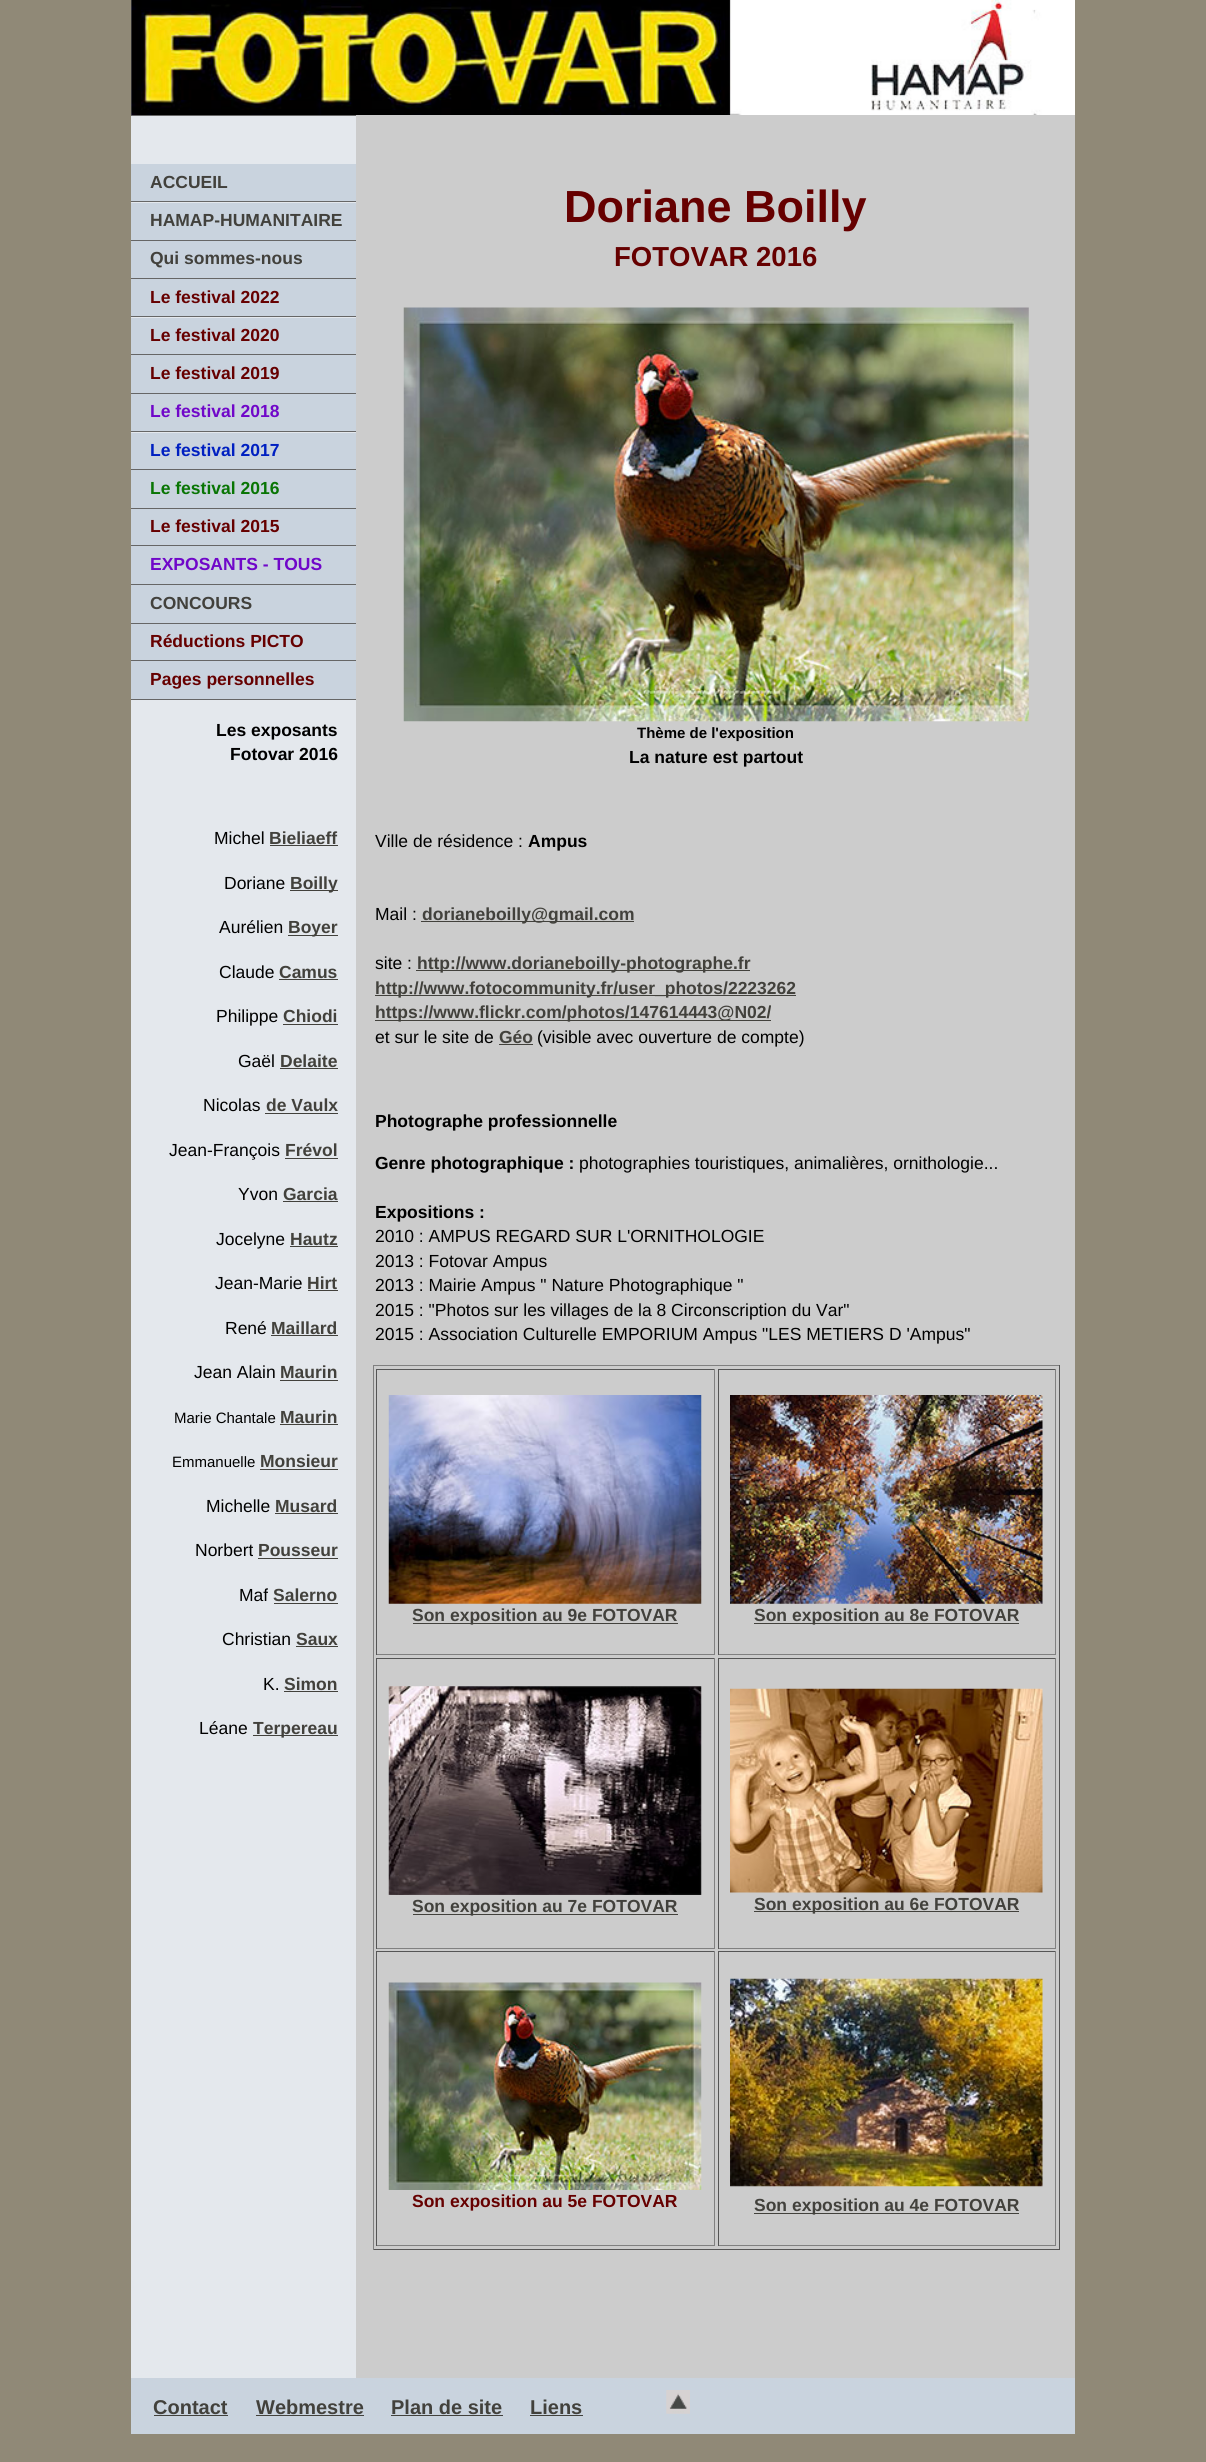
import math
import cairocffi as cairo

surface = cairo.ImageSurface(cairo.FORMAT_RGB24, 1206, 2462)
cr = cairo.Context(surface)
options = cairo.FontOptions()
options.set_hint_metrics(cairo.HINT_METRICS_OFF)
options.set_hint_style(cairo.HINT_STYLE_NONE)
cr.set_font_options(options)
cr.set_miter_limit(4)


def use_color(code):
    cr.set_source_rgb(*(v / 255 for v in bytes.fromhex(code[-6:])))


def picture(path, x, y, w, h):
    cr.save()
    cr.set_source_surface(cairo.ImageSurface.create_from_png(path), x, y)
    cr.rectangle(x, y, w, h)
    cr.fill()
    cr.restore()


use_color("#908977")
cr.paint()
use_color("#cccccc")
cr.rectangle(131, 0, 944, 2378)
cr.fill()
picture("img1.png", 131, 0, 944, 115)
use_color("#e4e8ed")
cr.rectangle(131, 116, 225, 2262)
cr.fill()
use_color("#666666")
cr.rectangle(131, 115, 225, 1)
cr.fill()
cr.rectangle(131, 201, 225, 1)
cr.fill()
use_color("#c9d3de")
cr.rectangle(131, 164, 225, 37)
cr.fill()
cr.select_font_face("Liberation Sans", cairo.FONT_SLANT_NORMAL, cairo.FONT_WEIGHT_BOLD)
cr.set_font_size(17.5)
use_color("#42413c")
cr.move_to(150, 188)
cr.show_text("ACCUEIL")
use_color("#666666")
cr.rectangle(131, 240, 225, 1)
cr.fill()
use_color("#c9d3de")
cr.rectangle(131, 203, 225, 37)
cr.fill()
use_color("#42413c")
cr.move_to(150, 226)
cr.show_text("HAMAP-HUMANITAIRE")
use_color("#666666")
cr.rectangle(131, 278, 225, 1)
cr.fill()
use_color("#c9d3de")
cr.rectangle(131, 241, 225, 37)
cr.fill()
use_color("#42413c")
cr.move_to(150, 264)
cr.show_text("Qui sommes-nous")
use_color("#666666")
cr.rectangle(131, 316, 225, 1)
cr.fill()
use_color("#c9d3de")
cr.rectangle(131, 279, 225, 37)
cr.fill()
use_color("#660000")
cr.move_to(150, 303)
cr.show_text("Le festival 2022")
use_color("#666666")
cr.rectangle(131, 354, 225, 1)
cr.fill()
use_color("#c9d3de")
cr.rectangle(131, 318, 225, 36)
cr.fill()
use_color("#660000")
cr.move_to(150, 341)
cr.show_text("Le festival 2020")
use_color("#666666")
cr.rectangle(131, 393, 225, 1)
cr.fill()
use_color("#c9d3de")
cr.rectangle(131, 355, 225, 38)
cr.fill()
use_color("#660000")
cr.move_to(150, 379)
cr.show_text("Le festival 2019")
use_color("#666666")
cr.rectangle(131, 431, 225, 1)
cr.fill()
use_color("#c9d3de")
cr.rectangle(131, 394, 225, 37)
cr.fill()
use_color("#7007c9")
cr.move_to(150, 417)
cr.show_text("Le festival 2018")
use_color("#666666")
cr.rectangle(131, 469, 225, 1)
cr.fill()
use_color("#c9d3de")
cr.rectangle(131, 433, 225, 36)
cr.fill()
use_color("#0020c1")
cr.move_to(150, 456)
cr.show_text("Le festival 2017")
use_color("#666666")
cr.rectangle(131, 508, 225, 1)
cr.fill()
use_color("#c9d3de")
cr.rectangle(131, 470, 225, 38)
cr.fill()
use_color("#097504")
cr.move_to(150, 494)
cr.show_text("Le festival 2016")
use_color("#666666")
cr.rectangle(131, 545, 225, 1)
cr.fill()
use_color("#c9d3de")
cr.rectangle(131, 509, 225, 36)
cr.fill()
use_color("#660000")
cr.move_to(150, 532)
cr.show_text("Le festival 2015")
use_color("#666666")
cr.rectangle(131, 584, 225, 1)
cr.fill()
use_color("#c9d3de")
cr.rectangle(131, 546, 225, 38)
cr.fill()
use_color("#7007c9")
cr.move_to(150, 570)
cr.show_text("EXPOSANTS - TOUS")
use_color("#666666")
cr.rectangle(131, 623, 225, 1)
cr.fill()
use_color("#c9d3de")
cr.rectangle(131, 585, 225, 38)
cr.fill()
use_color("#42413c")
cr.move_to(150, 609)
cr.show_text("CONCOURS")
use_color("#666666")
cr.rectangle(131, 660, 225, 1)
cr.fill()
use_color("#c9d3de")
cr.rectangle(131, 624, 225, 36)
cr.fill()
use_color("#660000")
cr.move_to(150, 647)
cr.show_text("Réductions PICTO")
use_color("#666666")
cr.rectangle(131, 699, 225, 1)
cr.fill()
use_color("#c9d3de")
cr.rectangle(131, 661, 225, 38)
cr.fill()
use_color("#660000")
cr.move_to(150, 685)
cr.show_text("Pages personnelles")
use_color("#000000")
cr.move_to(216, 736)
cr.show_text("Les exposants")
cr.move_to(230, 760)
cr.show_text("Fotovar 2016")
cr.select_font_face("Liberation Sans")
cr.move_to(214, 844)
cr.show_text("Michel")
cr.select_font_face("Liberation Sans", cairo.FONT_SLANT_NORMAL, cairo.FONT_WEIGHT_BOLD)
use_color("#42413c")
cr.move_to(269, 844)
cr.show_text("Bieliaeff")
cr.rectangle(270, 845, 68, 1)
cr.fill()
cr.select_font_face("Liberation Sans")
use_color("#000000")
cr.move_to(224, 889)
cr.show_text("Doriane")
use_color("#42413c")
cr.rectangle(290, 890, 48, 1)
cr.fill()
cr.select_font_face("Liberation Sans", cairo.FONT_SLANT_NORMAL, cairo.FONT_WEIGHT_BOLD)
cr.move_to(290, 889)
cr.show_text("Boilly")
cr.select_font_face("Liberation Sans")
use_color("#000000")
cr.move_to(219, 933)
cr.show_text("Aurélien")
use_color("#42413c")
cr.rectangle(288, 935, 50, 1)
cr.fill()
cr.select_font_face("Liberation Sans", cairo.FONT_SLANT_NORMAL, cairo.FONT_WEIGHT_BOLD)
cr.move_to(288, 933)
cr.show_text("Boyer")
cr.select_font_face("Liberation Sans")
use_color("#000000")
cr.move_to(219, 978)
cr.show_text("Claude")
cr.select_font_face("Liberation Sans", cairo.FONT_SLANT_NORMAL, cairo.FONT_WEIGHT_BOLD)
use_color("#42413c")
cr.move_to(279, 978)
cr.show_text("Camus")
cr.rectangle(279, 979, 59, 1)
cr.fill()
cr.select_font_face("Liberation Sans")
use_color("#000000")
cr.move_to(216, 1022)
cr.show_text("Philippe")
cr.select_font_face("Liberation Sans", cairo.FONT_SLANT_NORMAL, cairo.FONT_WEIGHT_BOLD)
use_color("#42413c")
cr.move_to(283, 1022)
cr.show_text("Chiodi")
cr.rectangle(283, 1024, 55, 1)
cr.fill()
cr.select_font_face("Liberation Sans")
use_color("#000000")
cr.move_to(238, 1067)
cr.show_text("Gaël")
cr.select_font_face("Liberation Sans", cairo.FONT_SLANT_NORMAL, cairo.FONT_WEIGHT_BOLD)
use_color("#42413c")
cr.move_to(280, 1067)
cr.show_text("Delaite")
cr.rectangle(280, 1068, 58, 1)
cr.fill()
cr.select_font_face("Liberation Sans")
use_color("#000000")
cr.move_to(203, 1111)
cr.show_text("Nicolas")
cr.select_font_face("Liberation Sans", cairo.FONT_SLANT_NORMAL, cairo.FONT_WEIGHT_BOLD)
use_color("#42413c")
cr.move_to(266, 1111)
cr.show_text("de Vaulx")
cr.rectangle(265, 1113, 73, 1)
cr.fill()
cr.select_font_face("Liberation Sans")
use_color("#000000")
cr.move_to(169, 1156)
cr.show_text("Jean-François")
cr.select_font_face("Liberation Sans", cairo.FONT_SLANT_NORMAL, cairo.FONT_WEIGHT_BOLD)
use_color("#42413c")
cr.move_to(285, 1156)
cr.show_text("Frévol")
cr.rectangle(285, 1158, 53, 1)
cr.fill()
cr.select_font_face("Liberation Sans")
use_color("#000000")
cr.move_to(238, 1200)
cr.show_text("Yvon")
cr.select_font_face("Liberation Sans", cairo.FONT_SLANT_NORMAL, cairo.FONT_WEIGHT_BOLD)
use_color("#42413c")
cr.move_to(283, 1200)
cr.show_text("Garcia")
cr.rectangle(283, 1201, 55, 1)
cr.fill()
cr.select_font_face("Liberation Sans")
use_color("#000000")
cr.move_to(216, 1245)
cr.show_text("Jocelyne")
cr.select_font_face("Liberation Sans", cairo.FONT_SLANT_NORMAL, cairo.FONT_WEIGHT_BOLD)
use_color("#42413c")
cr.move_to(290, 1245)
cr.show_text("Hautz")
cr.rectangle(290, 1246, 48, 1)
cr.fill()
cr.select_font_face("Liberation Sans")
use_color("#000000")
cr.move_to(215, 1289)
cr.show_text("Jean-Marie")
cr.select_font_face("Liberation Sans", cairo.FONT_SLANT_NORMAL, cairo.FONT_WEIGHT_BOLD)
use_color("#42413c")
cr.move_to(307, 1289)
cr.show_text("Hirt")
cr.rectangle(308, 1290, 30, 1)
cr.fill()
cr.select_font_face("Liberation Sans")
use_color("#000000")
cr.move_to(225, 1334)
cr.show_text("René")
cr.select_font_face("Liberation Sans", cairo.FONT_SLANT_NORMAL, cairo.FONT_WEIGHT_BOLD)
use_color("#42413c")
cr.move_to(271, 1334)
cr.show_text("Maillard")
cr.rectangle(271, 1335, 67, 1)
cr.fill()
cr.select_font_face("Liberation Sans")
use_color("#000000")
cr.move_to(194, 1378)
cr.show_text("Jean Alain")
cr.select_font_face("Liberation Sans", cairo.FONT_SLANT_NORMAL, cairo.FONT_WEIGHT_BOLD)
use_color("#42413c")
cr.move_to(280, 1378)
cr.show_text("Maurin")
cr.rectangle(280, 1380, 58, 1)
cr.fill()
cr.select_font_face("Liberation Sans")
cr.set_font_size(15)
use_color("#000000")
cr.move_to(174, 1423)
cr.show_text("Marie Chantale")
cr.select_font_face("Liberation Sans", cairo.FONT_SLANT_NORMAL, cairo.FONT_WEIGHT_BOLD)
cr.set_font_size(17.5)
use_color("#42413c")
cr.move_to(280, 1423)
cr.show_text("Maurin")
cr.rectangle(280, 1424, 58, 1)
cr.fill()
cr.select_font_face("Liberation Sans")
cr.set_font_size(15)
use_color("#000000")
cr.move_to(172, 1467)
cr.show_text("Emmanuelle")
cr.select_font_face("Liberation Sans", cairo.FONT_SLANT_NORMAL, cairo.FONT_WEIGHT_BOLD)
cr.set_font_size(17.5)
use_color("#42413c")
cr.move_to(260, 1467)
cr.show_text("Monsieur")
cr.rectangle(260, 1469, 78, 1)
cr.fill()
cr.select_font_face("Liberation Sans")
use_color("#000000")
cr.move_to(206, 1512)
cr.show_text("Michelle")
cr.select_font_face("Liberation Sans", cairo.FONT_SLANT_NORMAL, cairo.FONT_WEIGHT_BOLD)
use_color("#42413c")
cr.move_to(275, 1512)
cr.show_text("Musard")
cr.rectangle(275, 1513, 63, 1)
cr.fill()
cr.select_font_face("Liberation Sans")
use_color("#000000")
cr.move_to(195, 1556)
cr.show_text("Norbert")
cr.select_font_face("Liberation Sans", cairo.FONT_SLANT_NORMAL, cairo.FONT_WEIGHT_BOLD)
use_color("#42413c")
cr.move_to(258, 1556)
cr.show_text("Pousseur")
cr.rectangle(258, 1558, 80, 1)
cr.fill()
cr.select_font_face("Liberation Sans")
use_color("#000000")
cr.move_to(239, 1601)
cr.show_text("Maf")
cr.select_font_face("Liberation Sans", cairo.FONT_SLANT_NORMAL, cairo.FONT_WEIGHT_BOLD)
use_color("#42413c")
cr.move_to(273, 1601)
cr.show_text("Salerno")
cr.rectangle(274, 1603, 64, 1)
cr.fill()
cr.select_font_face("Liberation Sans")
use_color("#000000")
cr.move_to(222, 1645)
cr.show_text("Christian")
cr.select_font_face("Liberation Sans", cairo.FONT_SLANT_NORMAL, cairo.FONT_WEIGHT_BOLD)
use_color("#42413c")
cr.move_to(296, 1645)
cr.show_text("Saux")
cr.rectangle(296, 1646, 42, 1)
cr.fill()
cr.select_font_face("Liberation Sans")
use_color("#000000")
cr.move_to(263, 1690)
cr.show_text("K.")
cr.select_font_face("Liberation Sans", cairo.FONT_SLANT_NORMAL, cairo.FONT_WEIGHT_BOLD)
use_color("#42413c")
cr.move_to(284, 1690)
cr.show_text("Simon")
cr.rectangle(284, 1691, 54, 1)
cr.fill()
cr.select_font_face("Liberation Sans")
use_color("#000000")
cr.move_to(199, 1734)
cr.show_text("Léane")
use_color("#42413c")
cr.rectangle(253, 1735, 85, 1)
cr.fill()
cr.select_font_face("Liberation Sans", cairo.FONT_SLANT_NORMAL, cairo.FONT_WEIGHT_BOLD)
cr.move_to(253, 1734)
cr.show_text("Terpereau")
cr.set_font_size(45)
use_color("#660000")
cr.move_to(564, 222)
cr.show_text("Doriane Boilly")
cr.set_font_size(27.5)
cr.move_to(614, 266)
cr.show_text("FOTOVAR 2016")
picture("img2.png", 403, 307, 626, 415)
cr.set_font_size(15)
use_color("#000000")
cr.move_to(637, 738)
cr.show_text("Thème de l'exposition")
cr.set_font_size(17.5)
cr.move_to(629, 763)
cr.show_text("La nature est partout")
cr.select_font_face("Liberation Sans")
cr.move_to(375, 847)
cr.show_text("Ville de résidence :")
cr.select_font_face("Liberation Sans", cairo.FONT_SLANT_NORMAL, cairo.FONT_WEIGHT_BOLD)
cr.move_to(528, 847)
cr.show_text("Ampus")
cr.select_font_face("Liberation Sans")
cr.move_to(375, 920)
cr.show_text("Mail :")
use_color("#42413c")
cr.rectangle(421, 921, 213, 1)
cr.fill()
cr.select_font_face("Liberation Sans", cairo.FONT_SLANT_NORMAL, cairo.FONT_WEIGHT_BOLD)
cr.move_to(422, 920)
cr.show_text("dorianeboilly@gmail.com")
cr.select_font_face("Liberation Sans")
use_color("#000000")
cr.move_to(375, 969)
cr.show_text("site :")
use_color("#42413c")
cr.rectangle(416, 970, 334, 1)
cr.fill()
cr.select_font_face("Liberation Sans", cairo.FONT_SLANT_NORMAL, cairo.FONT_WEIGHT_BOLD)
cr.move_to(417, 969)
cr.show_text("http://www.dorianeboilly-photographe.fr")
cr.rectangle(375, 995, 421, 1)
cr.fill()
cr.move_to(375, 994)
cr.show_text("http://www.fotocommunity.fr/user_photos/2223262")
cr.rectangle(375, 1020, 396, 1)
cr.fill()
cr.move_to(375, 1018)
cr.show_text("https://www.flickr.com/photos/147614443@N02/")
cr.select_font_face("Liberation Sans")
use_color("#000000")
cr.move_to(375, 1043)
cr.show_text("et sur le site de")
cr.select_font_face("Liberation Sans", cairo.FONT_SLANT_NORMAL, cairo.FONT_WEIGHT_BOLD)
use_color("#42413c")
cr.move_to(499, 1043)
cr.show_text("Géo")
cr.rectangle(499, 1044, 34, 1)
cr.fill()
cr.select_font_face("Liberation Sans")
use_color("#000000")
cr.move_to(537, 1043)
cr.show_text("(visible avec ouverture de compte)")
cr.select_font_face("Liberation Sans", cairo.FONT_SLANT_NORMAL, cairo.FONT_WEIGHT_BOLD)
cr.move_to(375, 1127)
cr.show_text("Photographe professionnelle")
cr.move_to(375, 1169)
cr.show_text("Genre photographique :")
cr.select_font_face("Liberation Sans")
cr.move_to(579, 1169)
cr.show_text("photographies touristiques, animalières, ornithologie...")
cr.select_font_face("Liberation Sans", cairo.FONT_SLANT_NORMAL, cairo.FONT_WEIGHT_BOLD)
cr.move_to(375, 1218)
cr.show_text("Expositions :")
cr.select_font_face("Liberation Sans")
cr.move_to(375, 1242)
cr.show_text("2010 : AMPUS REGARD SUR L'ORNITHOLOGIE")
cr.move_to(375, 1267)
cr.show_text("2013 : Fotovar Ampus")
cr.move_to(375, 1291)
cr.show_text("2013 : Mairie Ampus \" Nature Photographique \"")
cr.move_to(375, 1316)
cr.show_text("2015 : \"Photos sur les villages de la 8 Circonscription du Var\"")
cr.move_to(375, 1340)
cr.show_text("2015 : Association Culturelle EMPORIUM Ampus \"LES METIERS D 'Ampus\"")
use_color("#808080")
cr.rectangle(373, 1365, 687, 1)
cr.fill()
use_color("#555555")
cr.rectangle(1059, 1365, 1, 885)
cr.fill()
cr.rectangle(373, 2249, 687, 1)
cr.fill()
use_color("#808080")
cr.rectangle(373, 1365, 1, 885)
cr.fill()
use_color("#555555")
cr.rectangle(376, 1369, 339, 1)
cr.fill()
use_color("#808080")
cr.rectangle(714, 1369, 1, 286)
cr.fill()
cr.rectangle(376, 1654, 339, 1)
cr.fill()
use_color("#555555")
cr.rectangle(376, 1369, 1, 286)
cr.fill()
picture("img3.png", 388, 1395, 314, 209)
use_color("#42413c")
cr.rectangle(413, 1623, 265, 1)
cr.fill()
cr.select_font_face("Liberation Sans", cairo.FONT_SLANT_NORMAL, cairo.FONT_WEIGHT_BOLD)
cr.move_to(412, 1621)
cr.show_text("Son exposition au 9e FOTOVAR")
use_color("#555555")
cr.rectangle(718, 1369, 338, 1)
cr.fill()
use_color("#808080")
cr.rectangle(1055, 1369, 1, 286)
cr.fill()
cr.rectangle(718, 1654, 338, 1)
cr.fill()
use_color("#555555")
cr.rectangle(718, 1369, 1, 286)
cr.fill()
picture("img4.png", 730, 1395, 313, 209)
use_color("#42413c")
cr.rectangle(754, 1623, 265, 1)
cr.fill()
cr.move_to(754, 1621)
cr.show_text("Son exposition au 8e FOTOVAR")
use_color("#555555")
cr.rectangle(376, 1658, 339, 1)
cr.fill()
use_color("#808080")
cr.rectangle(714, 1658, 1, 291)
cr.fill()
cr.rectangle(376, 1948, 339, 1)
cr.fill()
use_color("#555555")
cr.rectangle(376, 1658, 1, 291)
cr.fill()
picture("img5.png", 388, 1686, 314, 209)
use_color("#42413c")
cr.rectangle(413, 1914, 265, 1)
cr.fill()
cr.move_to(412, 1912)
cr.show_text("Son exposition au 7e FOTOVAR")
use_color("#555555")
cr.rectangle(718, 1658, 338, 1)
cr.fill()
use_color("#808080")
cr.rectangle(1055, 1658, 1, 291)
cr.fill()
cr.rectangle(718, 1948, 338, 1)
cr.fill()
use_color("#555555")
cr.rectangle(718, 1658, 1, 291)
cr.fill()
picture("img6.png", 730, 1688, 313, 205)
use_color("#42413c")
cr.rectangle(754, 1911, 265, 1)
cr.fill()
cr.move_to(754, 1910)
cr.show_text("Son exposition au 6e FOTOVAR")
use_color("#555555")
cr.rectangle(376, 1951, 339, 1)
cr.fill()
use_color("#808080")
cr.rectangle(714, 1951, 1, 295)
cr.fill()
cr.rectangle(376, 2245, 339, 1)
cr.fill()
use_color("#555555")
cr.rectangle(376, 1951, 1, 295)
cr.fill()
picture("img7.png", 388, 1982, 314, 208)
use_color("#660000")
cr.move_to(412, 2207)
cr.show_text("Son exposition au 5e FOTOVAR")
use_color("#555555")
cr.rectangle(718, 1951, 338, 1)
cr.fill()
use_color("#808080")
cr.rectangle(1055, 1951, 1, 295)
cr.fill()
cr.rectangle(718, 2245, 338, 1)
cr.fill()
use_color("#555555")
cr.rectangle(718, 1951, 1, 295)
cr.fill()
picture("img8.png", 730, 1978, 313, 209)
use_color("#42413c")
cr.rectangle(754, 2213, 265, 1)
cr.fill()
cr.move_to(754, 2211)
cr.show_text("Son exposition au 4e FOTOVAR")
use_color("#c9d3de")
cr.rectangle(131, 2378, 944, 56)
cr.fill()
cr.set_font_size(20)
use_color("#42413c")
cr.move_to(153, 2414)
cr.show_text("Contact")
cr.rectangle(154, 2415, 74, 1)
cr.fill()
cr.move_to(256, 2414)
cr.show_text("Webmestre")
cr.rectangle(256, 2415, 108, 1)
cr.fill()
cr.move_to(391, 2414)
cr.show_text("Plan de site")
cr.rectangle(391, 2415, 112, 1)
cr.fill()
cr.move_to(530, 2414)
cr.show_text("Liens")
cr.rectangle(530, 2415, 53, 1)
cr.fill()
picture("img9.png", 666, 2390, 24, 24)
surface.write_to_png("result.png")
